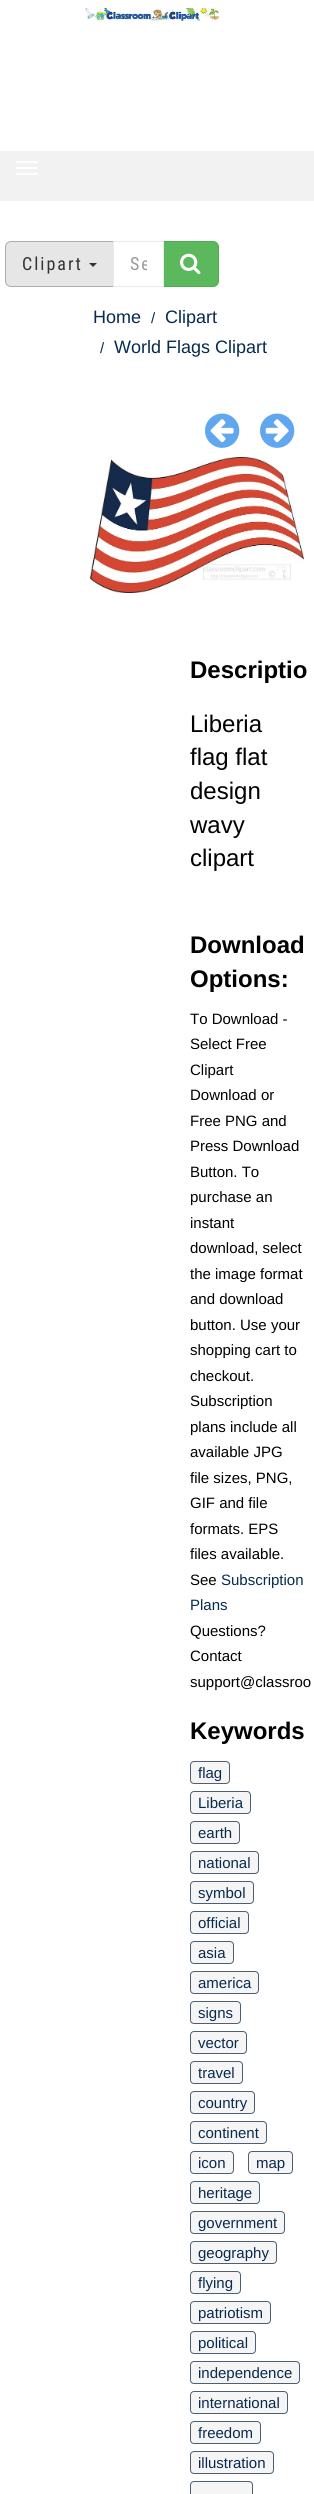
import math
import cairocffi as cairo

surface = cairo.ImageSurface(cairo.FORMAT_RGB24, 314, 2494)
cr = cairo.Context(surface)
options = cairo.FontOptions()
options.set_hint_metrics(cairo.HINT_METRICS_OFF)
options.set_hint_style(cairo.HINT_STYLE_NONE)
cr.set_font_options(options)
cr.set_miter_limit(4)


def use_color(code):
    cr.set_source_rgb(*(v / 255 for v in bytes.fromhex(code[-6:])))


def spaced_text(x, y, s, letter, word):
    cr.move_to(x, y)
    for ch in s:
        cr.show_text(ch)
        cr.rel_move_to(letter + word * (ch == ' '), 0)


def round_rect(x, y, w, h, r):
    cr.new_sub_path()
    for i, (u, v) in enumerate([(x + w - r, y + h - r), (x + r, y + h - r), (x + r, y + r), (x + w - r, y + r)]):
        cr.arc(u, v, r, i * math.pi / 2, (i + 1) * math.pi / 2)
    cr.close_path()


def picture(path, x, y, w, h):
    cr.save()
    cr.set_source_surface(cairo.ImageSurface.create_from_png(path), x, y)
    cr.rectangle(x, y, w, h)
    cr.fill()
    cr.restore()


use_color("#ffffff")
cr.paint()
picture("img1.png", 85, 8, 134, 13)
use_color("#f2f2f2")
cr.rectangle(0, 151, 314, 50)
cr.fill()
use_color("#ffffff")
round_rect(16, 161, 22, 2, 1)
cr.fill()
round_rect(16, 167, 22, 2, 1)
cr.fill()
round_rect(16, 173, 22, 2, 1)
cr.fill()
use_color("#e6e6e6")
cr.new_path()
cr.move_to(11, 241.5)
cr.line_to(113.5, 241.5)
cr.line_to(113.5, 286.5)
cr.line_to(11, 286.5)
cr.curve_to(8, 286.5, 5.5, 284, 5.5, 281)
cr.line_to(5.5, 247)
cr.curve_to(5.5, 244, 8, 241.5, 11, 241.5)
cr.close_path()
cr.fill_preserve()
use_color("#adadad")
cr.set_line_width(1)
cr.stroke()
cr.select_font_face("Roboto Condensed")
cr.set_font_size(18)
use_color("#333333")
spaced_text(22, 270, "Clipart", 2, 0)
cr.new_path()
cr.move_to(89, 263)
cr.line_to(97, 263)
cr.line_to(93, 267)
cr.close_path()
cr.fill()
use_color("#5cb85c")
cr.new_path()
cr.move_to(163.5, 241.5)
cr.line_to(213, 241.5)
cr.curve_to(216, 241.5, 218.5, 244, 218.5, 247)
cr.line_to(218.5, 281)
cr.curve_to(218.5, 284, 216, 286.5, 213, 286.5)
cr.line_to(163.5, 286.5)
cr.close_path()
cr.fill_preserve()
use_color("#4cae4c")
cr.stroke()
cr.rectangle(113.5, 241.5, 50, 45)
use_color("#eaeaea")
cr.stroke()
cr.save()
cr.rectangle(130, 253, 17, 21)
cr.clip()
use_color("#999999")
spaced_text(130, 270, "Se", 2, 0)
cr.restore()
picture("img2.png", 180, 253, 21, 22)
cr.select_font_face("Liberation Sans")
use_color("#072a4f")
cr.move_to(93, 323)
cr.show_text("Home")
cr.set_font_size(15)
cr.move_to(151, 323)
cr.show_text("/")
cr.set_font_size(18)
cr.move_to(165, 323)
cr.show_text("Clipart")
cr.set_font_size(15)
cr.move_to(100, 353)
cr.show_text("/")
cr.set_font_size(18)
cr.move_to(114, 353)
cr.show_text("World Flags Clipart")
picture("img3.png", 205, 413, 35, 35)
picture("img4.png", 260, 413, 35, 35)
picture("img5.png", 90, 457, 214, 136)
cr.select_font_face("Liberation Sans", cairo.FONT_SLANT_NORMAL, cairo.FONT_WEIGHT_BOLD)
cr.set_font_size(24)
use_color("#000000")
cr.move_to(190, 678)
cr.show_text("Descriptio")
cr.select_font_face("Liberation Sans")
cr.move_to(190, 732)
cr.show_text("Liberia")
cr.move_to(190, 765)
cr.show_text("flag flat")
cr.move_to(190, 799)
cr.show_text("design")
cr.move_to(190, 833)
cr.show_text("wavy")
cr.move_to(190, 866)
cr.show_text("clipart")
cr.select_font_face("Liberation Sans", cairo.FONT_SLANT_NORMAL, cairo.FONT_WEIGHT_BOLD)
cr.move_to(190, 953)
cr.show_text("Download")
cr.move_to(190, 987)
cr.show_text("Options:")
cr.select_font_face("Liberation Sans")
cr.set_font_size(15)
cr.move_to(190, 1024)
cr.show_text("To Download -")
cr.move_to(190, 1049)
cr.show_text("Select Free")
cr.move_to(190, 1075)
cr.show_text("Clipart")
cr.move_to(190, 1100)
cr.show_text("Download or")
cr.move_to(190, 1126)
cr.show_text("Free PNG and")
cr.move_to(190, 1151)
cr.show_text("Press Download")
cr.move_to(190, 1177)
cr.show_text("Button. To")
cr.move_to(190, 1202)
cr.show_text("purchase an")
cr.move_to(190, 1228)
cr.show_text("instant")
cr.move_to(190, 1253)
cr.show_text("download, select")
cr.move_to(190, 1279)
cr.show_text("the image format")
cr.move_to(190, 1304)
cr.show_text("and download")
cr.move_to(190, 1330)
cr.show_text("button. Use your")
cr.move_to(190, 1355)
cr.show_text("shopping cart to")
cr.move_to(190, 1381)
cr.show_text("checkout.")
cr.move_to(190, 1406)
cr.show_text("Subscription")
cr.move_to(190, 1432)
cr.show_text("plans include all")
cr.move_to(190, 1457)
cr.show_text("available JPG")
cr.move_to(190, 1483)
cr.show_text("file sizes, PNG,")
cr.move_to(190, 1508)
cr.show_text("GIF and file")
cr.move_to(190, 1534)
cr.show_text("formats. EPS")
cr.move_to(190, 1559)
cr.show_text("files available.")
cr.move_to(190, 1585)
cr.show_text("See")
use_color("#072a4f")
cr.move_to(221, 1585)
cr.show_text("Subscription")
cr.move_to(190, 1610)
cr.show_text("Plans")
use_color("#000000")
cr.move_to(190, 1636)
cr.show_text("Questions?")
cr.move_to(190, 1661)
cr.show_text("Contact")
cr.move_to(190, 1687)
cr.show_text("support@classroo")
cr.select_font_face("Liberation Sans", cairo.FONT_SLANT_NORMAL, cairo.FONT_WEIGHT_BOLD)
cr.set_font_size(24)
cr.move_to(190, 1739)
cr.show_text("Keywords")
use_color("#f5f5f5")
round_rect(190.5, 1761.5, 39, 22, 3.5)
cr.fill_preserve()
use_color("#4c5f73")
cr.stroke()
cr.select_font_face("Liberation Sans")
cr.set_font_size(15)
use_color("#072a4f")
cr.move_to(198, 1778)
cr.show_text("flag")
use_color("#f5f5f5")
round_rect(190.5, 1791.5, 60, 22, 3.5)
cr.fill_preserve()
use_color("#4c5f73")
cr.stroke()
use_color("#072a4f")
cr.move_to(198, 1808)
cr.show_text("Liberia")
use_color("#f5f5f5")
round_rect(190.5, 1821.5, 49, 22, 3.5)
cr.fill_preserve()
use_color("#4c5f73")
cr.stroke()
use_color("#072a4f")
cr.move_to(198, 1838)
cr.show_text("earth")
use_color("#f5f5f5")
round_rect(190.5, 1851.5, 68, 22, 3.5)
cr.fill_preserve()
use_color("#4c5f73")
cr.stroke()
use_color("#072a4f")
cr.move_to(198, 1868)
cr.show_text("national")
use_color("#f5f5f5")
round_rect(190.5, 1881.5, 63, 22, 3.5)
cr.fill_preserve()
use_color("#4c5f73")
cr.stroke()
use_color("#072a4f")
cr.move_to(198, 1898)
cr.show_text("symbol")
use_color("#f5f5f5")
round_rect(190.5, 1911.5, 58, 22, 3.5)
cr.fill_preserve()
use_color("#4c5f73")
cr.stroke()
use_color("#072a4f")
cr.move_to(198, 1928)
cr.show_text("official")
use_color("#f5f5f5")
round_rect(190.5, 1941.5, 43, 22, 3.5)
cr.fill_preserve()
use_color("#4c5f73")
cr.stroke()
use_color("#072a4f")
cr.move_to(198, 1958)
cr.show_text("asia")
use_color("#f5f5f5")
round_rect(190.5, 1971.5, 68, 22, 3.5)
cr.fill_preserve()
use_color("#4c5f73")
cr.stroke()
use_color("#072a4f")
cr.move_to(198, 1988)
cr.show_text("america")
use_color("#f5f5f5")
round_rect(190.5, 2001.5, 50, 22, 3.5)
cr.fill_preserve()
use_color("#4c5f73")
cr.stroke()
use_color("#072a4f")
cr.move_to(198, 2018)
cr.show_text("signs")
use_color("#f5f5f5")
round_rect(190.5, 2031.5, 56, 22, 3.5)
cr.fill_preserve()
use_color("#4c5f73")
cr.stroke()
use_color("#072a4f")
cr.move_to(198, 2048)
cr.show_text("vector")
use_color("#f5f5f5")
round_rect(190.5, 2061.5, 52, 22, 3.5)
cr.fill_preserve()
use_color("#4c5f73")
cr.stroke()
use_color("#072a4f")
cr.move_to(198, 2078)
cr.show_text("travel")
use_color("#f5f5f5")
round_rect(190.5, 2091.5, 64, 22, 3.5)
cr.fill_preserve()
use_color("#4c5f73")
cr.stroke()
use_color("#072a4f")
cr.move_to(198, 2108)
cr.show_text("country")
use_color("#f5f5f5")
round_rect(190.5, 2121.5, 76, 22, 3.5)
cr.fill_preserve()
use_color("#4c5f73")
cr.stroke()
use_color("#072a4f")
cr.move_to(198, 2138)
cr.show_text("continent")
use_color("#f5f5f5")
round_rect(190.5, 2151.5, 43, 22, 3.5)
cr.fill_preserve()
use_color("#4c5f73")
cr.stroke()
use_color("#072a4f")
cr.move_to(198, 2168)
cr.show_text("icon")
use_color("#f5f5f5")
round_rect(248.5, 2151.5, 44, 22, 3.5)
cr.fill_preserve()
use_color("#4c5f73")
cr.stroke()
use_color("#072a4f")
cr.move_to(256, 2168)
cr.show_text("map")
use_color("#f5f5f5")
round_rect(190.5, 2181.5, 69, 22, 3.5)
cr.fill_preserve()
use_color("#4c5f73")
cr.stroke()
use_color("#072a4f")
cr.move_to(198, 2198)
cr.show_text("heritage")
use_color("#f5f5f5")
round_rect(190.5, 2211.5, 94, 22, 3.5)
cr.fill_preserve()
use_color("#4c5f73")
cr.stroke()
use_color("#072a4f")
cr.move_to(198, 2228)
cr.show_text("government")
use_color("#f5f5f5")
round_rect(190.5, 2241.5, 86, 22, 3.5)
cr.fill_preserve()
use_color("#4c5f73")
cr.stroke()
use_color("#072a4f")
cr.move_to(198, 2258)
cr.show_text("geography")
use_color("#f5f5f5")
round_rect(190.5, 2271.5, 50, 22, 3.5)
cr.fill_preserve()
use_color("#4c5f73")
cr.stroke()
use_color("#072a4f")
cr.move_to(198, 2288)
cr.show_text("flying")
use_color("#f5f5f5")
round_rect(190.5, 2301.5, 80, 22, 3.5)
cr.fill_preserve()
use_color("#4c5f73")
cr.stroke()
use_color("#072a4f")
cr.move_to(198, 2318)
cr.show_text("patriotism")
use_color("#f5f5f5")
round_rect(190.5, 2331.5, 65, 22, 3.5)
cr.fill_preserve()
use_color("#4c5f73")
cr.stroke()
use_color("#072a4f")
cr.move_to(198, 2348)
cr.show_text("political")
use_color("#f5f5f5")
round_rect(190.5, 2361.5, 109, 22, 3.5)
cr.fill_preserve()
use_color("#4c5f73")
cr.stroke()
use_color("#072a4f")
cr.move_to(198, 2378)
cr.show_text("independence")
use_color("#f5f5f5")
round_rect(190.5, 2391.5, 97, 22, 3.5)
cr.fill_preserve()
use_color("#4c5f73")
cr.stroke()
use_color("#072a4f")
cr.move_to(198, 2408)
cr.show_text("international")
use_color("#f5f5f5")
round_rect(190.5, 2421.5, 70, 22, 3.5)
cr.fill_preserve()
use_color("#4c5f73")
cr.stroke()
use_color("#072a4f")
cr.move_to(198, 2438)
cr.show_text("freedom")
use_color("#f5f5f5")
round_rect(190.5, 2451.5, 83, 22, 3.5)
cr.fill_preserve()
use_color("#4c5f73")
cr.stroke()
use_color("#072a4f")
cr.move_to(198, 2468)
cr.show_text("illustration")
use_color("#f5f5f5")
round_rect(190.5, 2481.5, 62, 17, 3.5)
cr.fill_preserve()
use_color("#4c5f73")
cr.stroke()
surface.write_to_png("result.png")
